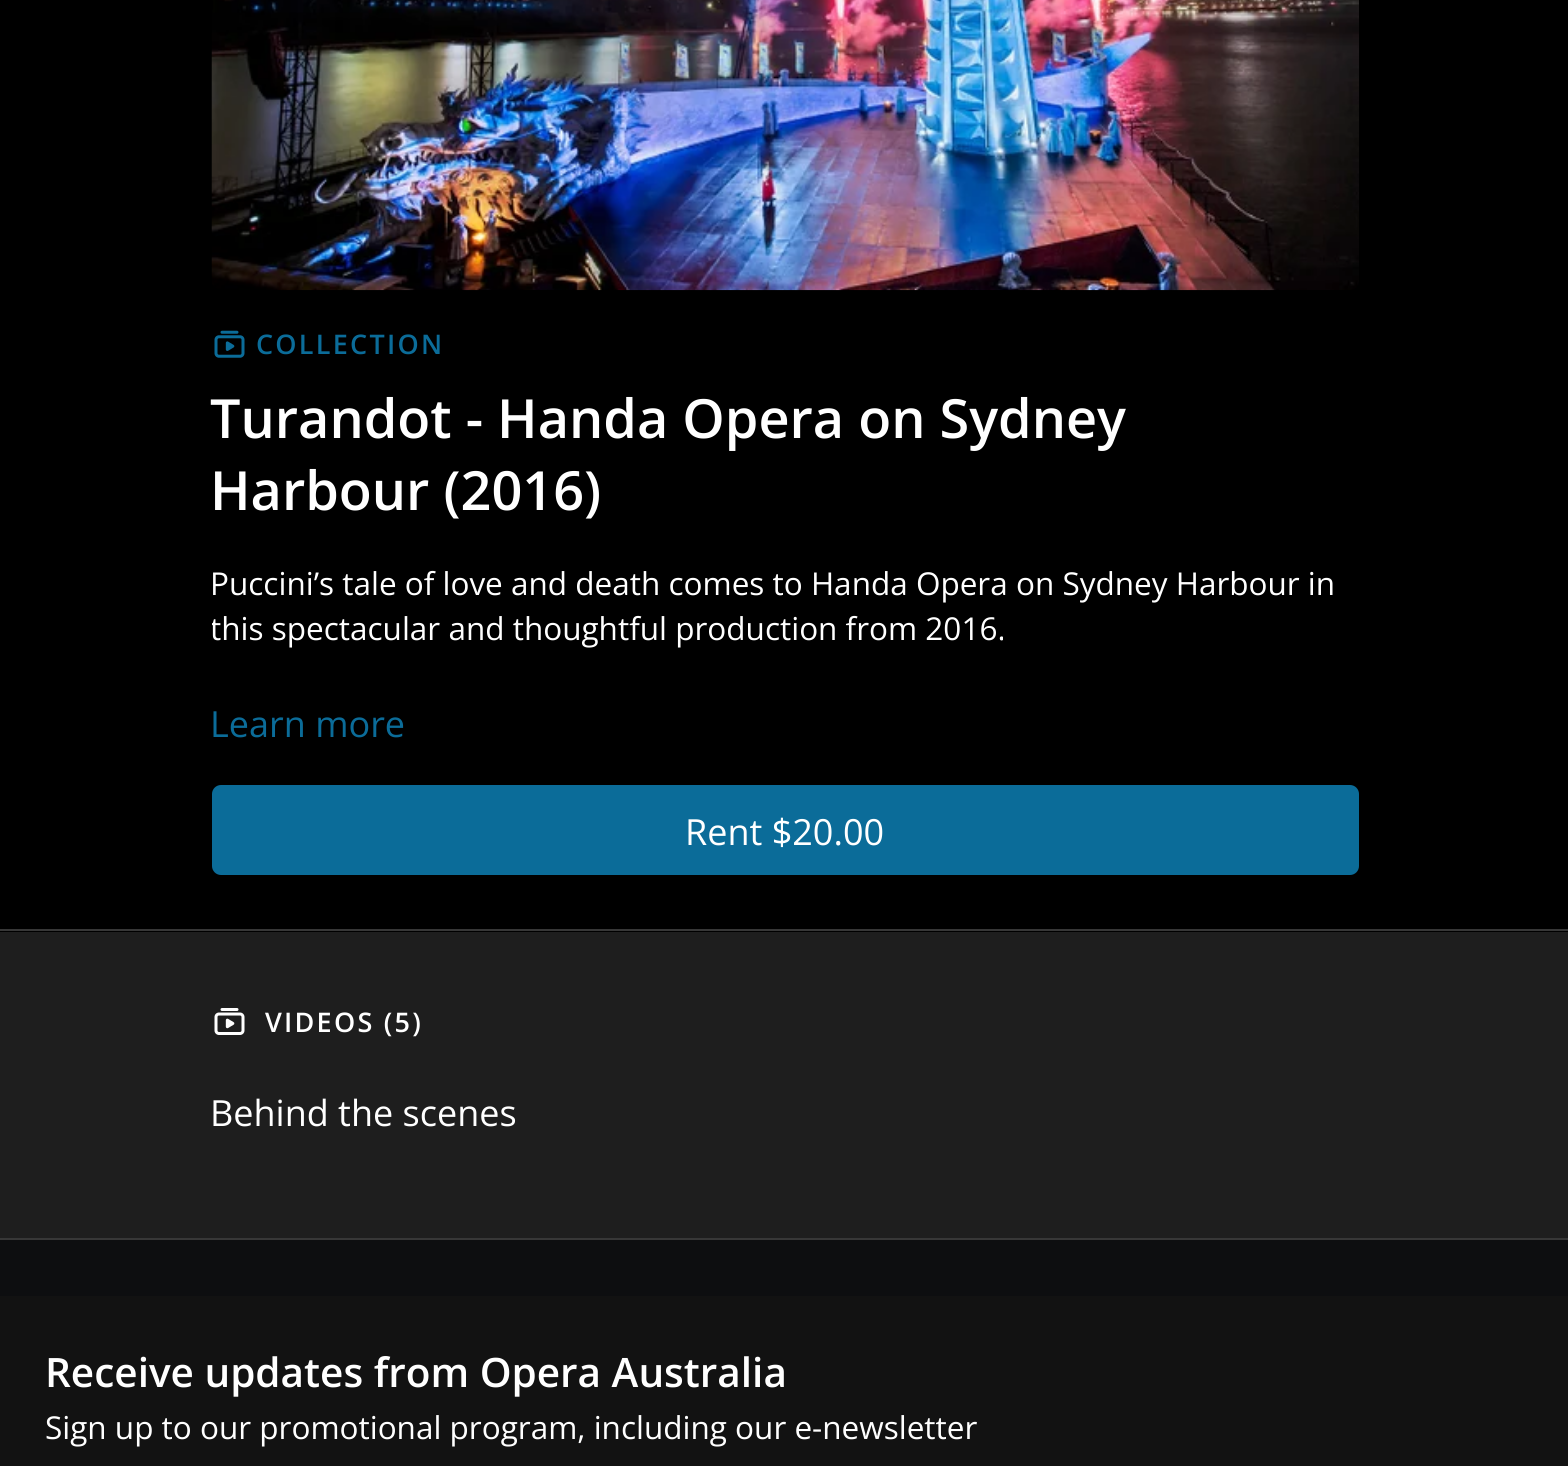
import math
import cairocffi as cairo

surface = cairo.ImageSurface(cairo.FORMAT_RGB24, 1568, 1466)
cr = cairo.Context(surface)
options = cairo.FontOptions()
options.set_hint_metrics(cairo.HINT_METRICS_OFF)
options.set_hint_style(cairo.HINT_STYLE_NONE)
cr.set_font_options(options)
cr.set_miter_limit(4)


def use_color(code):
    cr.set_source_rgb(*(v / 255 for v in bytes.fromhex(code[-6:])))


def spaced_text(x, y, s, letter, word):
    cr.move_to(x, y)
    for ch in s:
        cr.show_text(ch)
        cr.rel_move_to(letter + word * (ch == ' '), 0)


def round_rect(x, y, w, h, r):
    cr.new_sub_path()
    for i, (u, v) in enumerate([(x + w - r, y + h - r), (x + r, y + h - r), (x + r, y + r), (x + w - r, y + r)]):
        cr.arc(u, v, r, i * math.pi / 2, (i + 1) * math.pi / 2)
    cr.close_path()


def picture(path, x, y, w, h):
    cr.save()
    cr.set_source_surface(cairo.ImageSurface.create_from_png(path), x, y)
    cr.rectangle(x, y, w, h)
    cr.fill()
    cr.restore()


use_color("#0d0e10")
cr.paint()
use_color("#000000")
cr.rectangle(0, 0, 1568, 932)
cr.fill()
picture("img1.png", 211, 0, 1148, 291)
picture("img2.png", 214, 330, 31, 28)
cr.select_font_face("Open Sans SemiBold")
cr.set_font_size(27)
use_color("#0b6c99")
spaced_text(256, 354, "COLLECTION", 2.25, 0)
cr.set_font_size(54)
use_color("#ffffff")
cr.move_to(210, 438)
cr.show_text("Turandot - Handa Opera on Sydney")
cr.move_to(210, 510)
cr.show_text("Harbour (2016)")
cr.select_font_face("Open Sans")
cr.set_font_size(31.5)
cr.move_to(210, 595)
cr.show_text("Puccini’s tale of love and death comes to Handa Opera on Sydney Harbour in")
cr.save()
cr.rectangle(212, 560, 1147, 135)
cr.clip()
cr.move_to(210, 640)
cr.show_text("this spectacular and thoughtful production from 2016.")
cr.restore()
cr.set_font_size(36)
use_color("#0b6c99")
cr.move_to(210, 737)
cr.show_text("Learn more")
round_rect(212, 785, 1147, 90, 9)
cr.fill()
use_color("#ffffff")
cr.move_to(685, 845)
cr.show_text("Rent $20.00")
use_color("#1e1e1e")
cr.rectangle(0, 932, 1568, 306)
cr.fill()
use_color("#373737")
cr.rectangle(0, 929, 1568, 2)
cr.fill()
cr.rectangle(0, 1238, 1568, 2)
cr.fill()
picture("img3.png", 214, 1008, 31, 27)
cr.select_font_face("Open Sans SemiBold")
cr.set_font_size(27)
use_color("#ffffff")
spaced_text(265, 1032, "VIDEOS (5)", 2.25, 0)
cr.select_font_face("Open Sans")
cr.set_font_size(36)
cr.move_to(210, 1126)
cr.show_text("Behind the scenes")
use_color("#121212")
cr.rectangle(0, 1296, 1568, 170)
cr.fill()
cr.select_font_face("Open Sans SemiBold")
cr.set_font_size(40.5)
use_color("#ffffff")
cr.move_to(45, 1387)
cr.show_text("Receive updates from Opera Australia")
cr.select_font_face("Open Sans")
cr.set_font_size(31.5)
cr.move_to(45, 1439)
cr.show_text("Sign up to our promotional program, including our e-newsletter")
surface.write_to_png("result.png")
